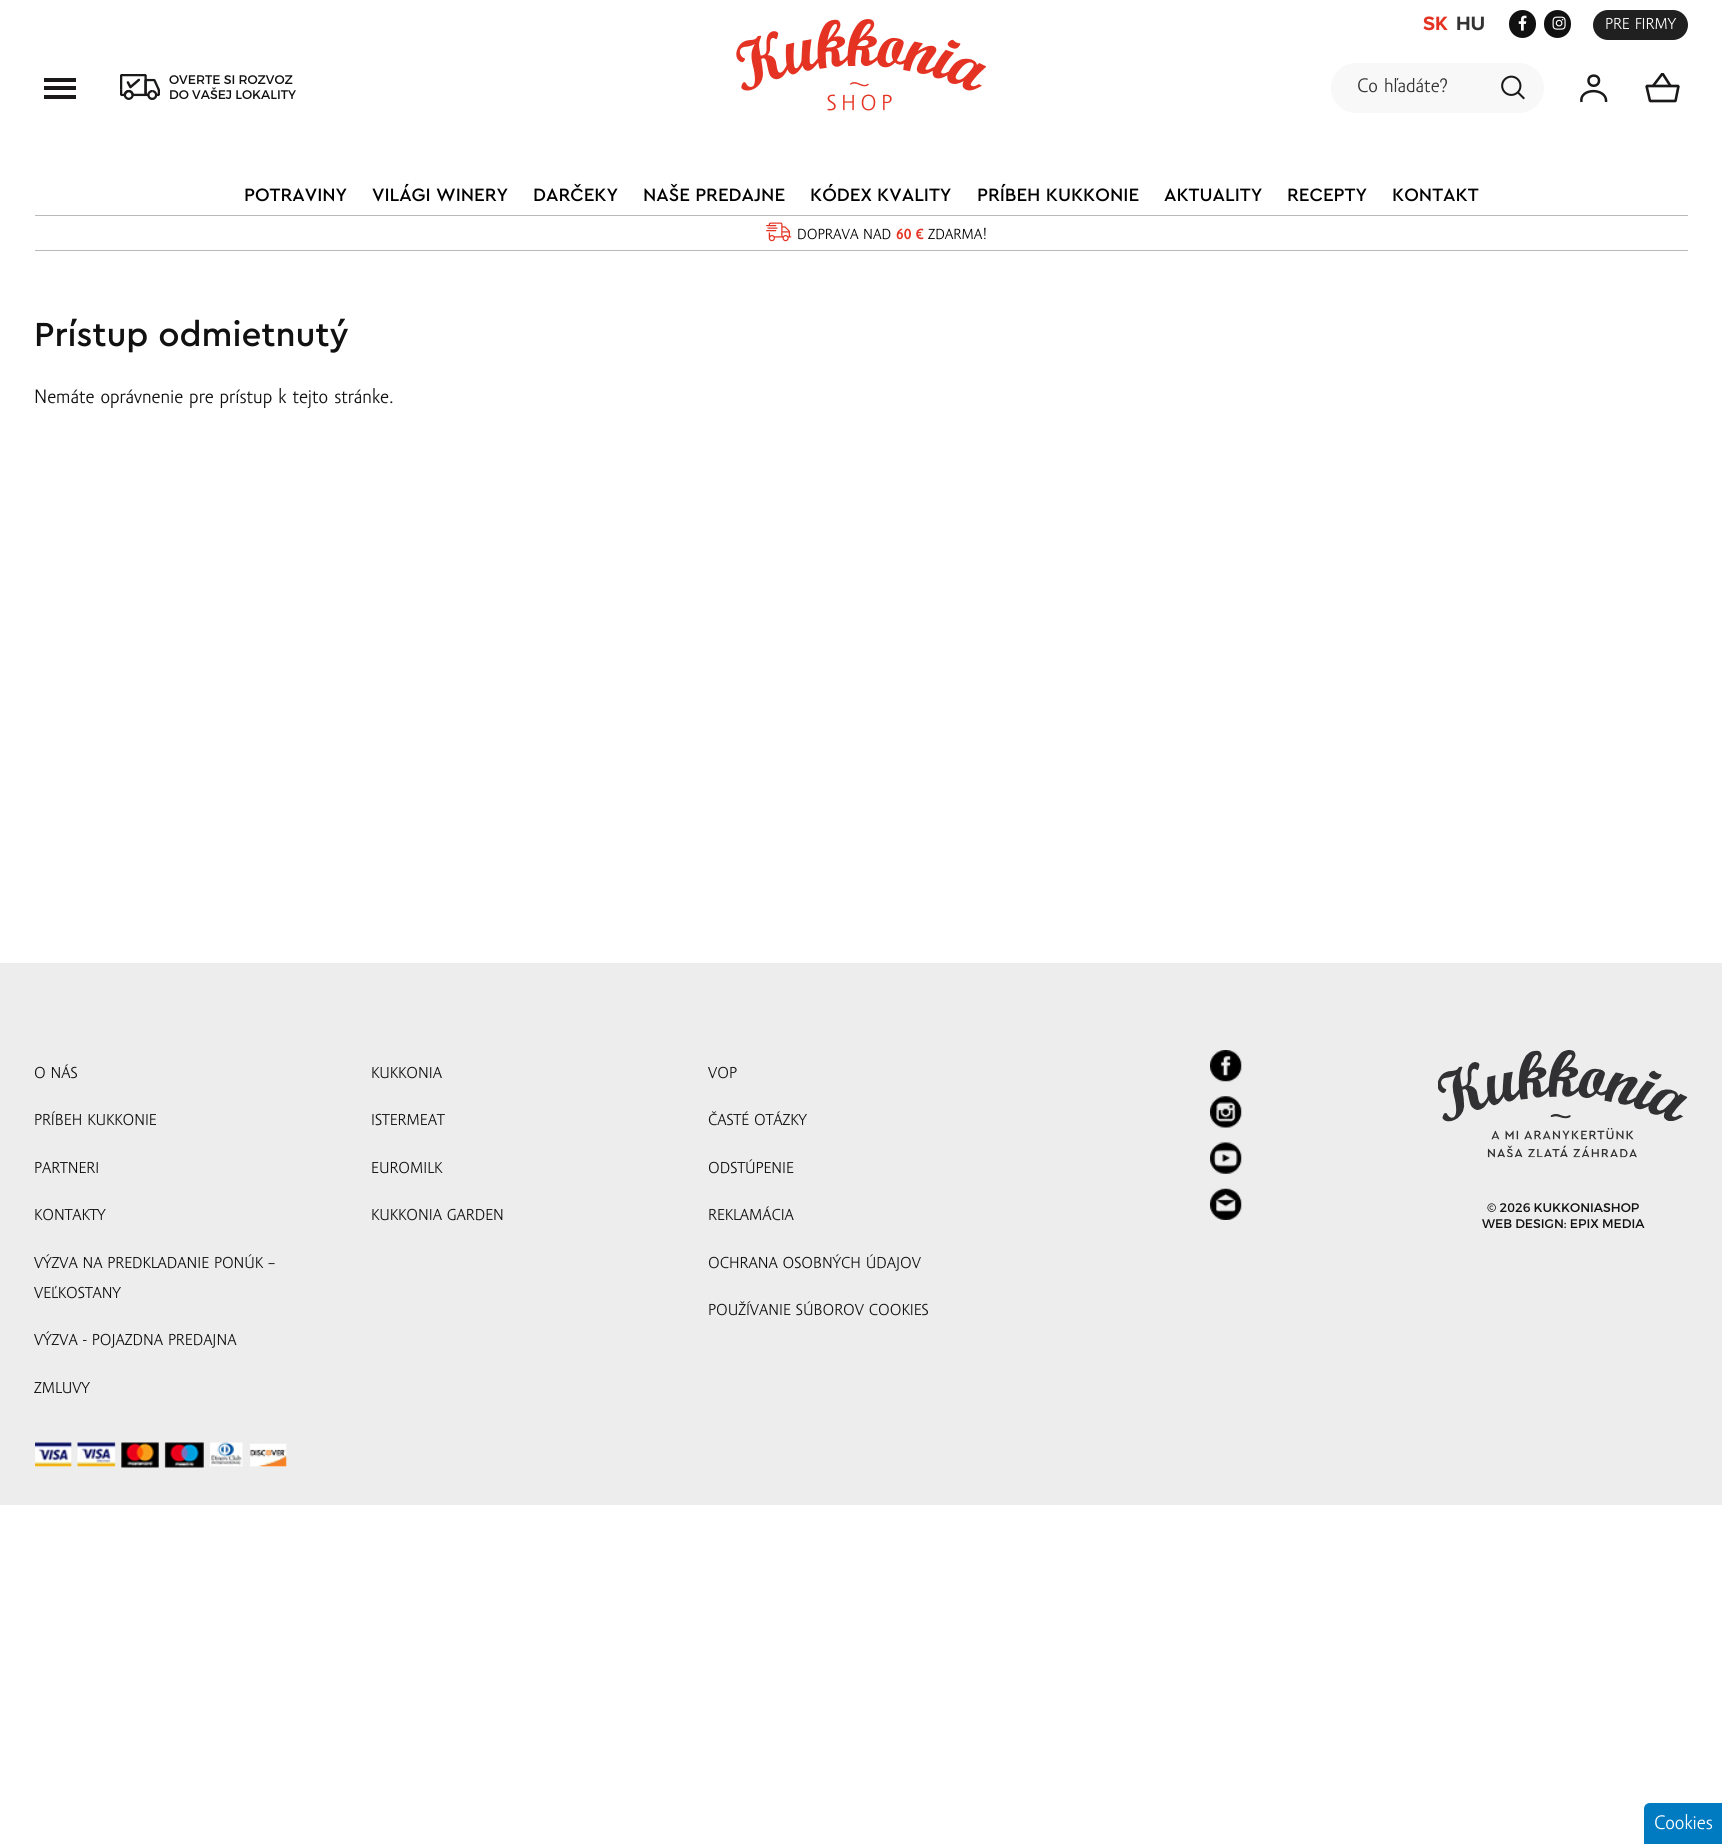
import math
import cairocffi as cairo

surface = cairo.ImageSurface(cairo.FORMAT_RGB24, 1722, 1844)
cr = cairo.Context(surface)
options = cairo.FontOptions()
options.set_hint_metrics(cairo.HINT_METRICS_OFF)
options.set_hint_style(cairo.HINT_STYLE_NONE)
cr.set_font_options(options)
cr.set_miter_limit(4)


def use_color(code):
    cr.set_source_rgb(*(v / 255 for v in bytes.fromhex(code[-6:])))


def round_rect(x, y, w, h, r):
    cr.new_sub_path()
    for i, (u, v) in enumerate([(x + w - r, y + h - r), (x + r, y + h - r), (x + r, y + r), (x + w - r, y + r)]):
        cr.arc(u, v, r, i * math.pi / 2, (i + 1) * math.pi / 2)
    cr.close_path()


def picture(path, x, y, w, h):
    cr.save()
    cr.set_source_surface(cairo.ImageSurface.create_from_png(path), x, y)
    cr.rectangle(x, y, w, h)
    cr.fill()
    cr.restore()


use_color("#ffffff")
cr.paint()
cr.select_font_face("Proxima Nova", cairo.FONT_SLANT_NORMAL, cairo.FONT_WEIGHT_BOLD)
cr.set_font_size(20)
use_color("#e53323")
cr.move_to(1423, 30)
cr.show_text("SK")
use_color("#333333")
cr.move_to(1456, 30)
cr.show_text("HU")
use_color("#111111")
round_rect(1509, 10, 27, 28, 13.5)
cr.fill()
picture("img1.png", 1518, 15, 9, 16)
round_rect(1544, 10, 27, 28, 13.5)
cr.fill()
picture("img2.png", 1552, 16, 14, 14)
use_color("#202020")
round_rect(1593, 10, 95, 30, 15)
cr.fill()
cr.select_font_face("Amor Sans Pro")
cr.set_font_size(16.25)
use_color("#ffffff")
cr.move_to(1605, 29)
cr.show_text("PRE FIRMY")
use_color("#1a1818")
cr.rectangle(44, 86, 32, 4)
cr.fill()
cr.rectangle(44, 78, 32, 4)
cr.fill()
cr.rectangle(44, 95, 32, 4)
cr.fill()
picture("img3.png", 120, 74, 40, 26)
cr.select_font_face("Montserrat")
cr.set_font_size(12.5)
use_color("#111111")
cr.move_to(169, 84)
cr.show_text("OVERTE SI ROZVOZ")
cr.move_to(169, 99)
cr.show_text("DO VAŠEJ LOKALITY")
use_color("#f8f8f8")
round_rect(1331, 63, 213, 50, 25)
cr.fill()
cr.save()
cr.rectangle(1356, 78, 125, 21)
cr.clip()
cr.select_font_face("Amor Sans Pro")
cr.set_font_size(20)
use_color("#333333")
cr.move_to(1357, 92)
cr.show_text("Čo hľadáte?")
cr.restore()
picture("img4.png", 1501, 75, 24, 25)
cr.new_path()
cr.move_to(1581.5, 102)
cr.curve_to(1579, 87.5, 1607.5, 87.5, 1606, 102)
cr.move_to(1599, 80.5)
cr.curve_to(1599, 74, 1588.5, 74, 1588.5, 80.5)
cr.curve_to(1588.5, 87.5, 1599, 87.5, 1599, 80.5)
cr.close_path()
use_color("#1a1818")
cr.set_line_width(2.5)
cr.set_line_join(cairo.LINE_JOIN_BEVEL)
cr.stroke()
cr.new_path()
cr.move_to(1646.5, 86)
cr.line_to(1678.5, 86)
cr.line_to(1675.5, 101)
cr.line_to(1650, 101)
cr.close_path()
cr.set_line_width(2.6)
cr.stroke()
cr.save()
cr.rectangle(1645, 73, 35, 30)
cr.clip()
cr.new_path()
cr.move_to(1653, 86)
cr.line_to(1662.5, 73.5)
cr.line_to(1670.5, 86)
cr.stroke()
cr.restore()
cr.select_font_face("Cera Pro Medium")
cr.set_font_size(18.75)
use_color("#000000")
cr.move_to(244, 201)
cr.show_text("POTRAVINY")
cr.move_to(372, 201)
cr.show_text("VILÁGI WINERY")
cr.move_to(533, 201)
cr.show_text("DARČEKY")
cr.move_to(643, 201)
cr.show_text("NAŠE PREDAJNE")
cr.move_to(810, 201)
cr.show_text("KÓDEX KVALITY")
cr.move_to(977, 201)
cr.show_text("PRÍBEH KUKKONIE")
cr.move_to(1164, 201)
cr.show_text("AKTUALITY")
cr.move_to(1287, 201)
cr.show_text("RECEPTY")
cr.move_to(1392, 201)
cr.show_text("KONTAKT")
use_color("#b9b9b9")
cr.rectangle(35, 215, 1653, 1)
cr.fill()
cr.rectangle(35, 250, 1653, 1)
cr.fill()
picture("img5.png", 766, 222, 26, 20)
cr.select_font_face("Amor Sans Pro")
cr.set_font_size(15)
use_color("#000000")
cr.move_to(797, 239)
cr.show_text("DOPRAVA NAD")
cr.select_font_face("Amor Sans Pro", cairo.FONT_SLANT_NORMAL, cairo.FONT_WEIGHT_BOLD)
use_color("#e53323")
cr.move_to(896, 239)
cr.show_text("60 €")
cr.select_font_face("Amor Sans Pro")
use_color("#000000")
cr.move_to(928, 239)
cr.show_text("ZDARMA!")
picture("img6.png", 736, 19, 250, 92)
cr.select_font_face("Cera Pro Medium")
cr.set_font_size(35)
use_color("#111111")
cr.move_to(34, 346)
cr.show_text("Prístup odmietnutý")
cr.select_font_face("Amor Sans Pro")
cr.set_font_size(20)
cr.move_to(34, 403)
cr.show_text("Nemáte oprávnenie pre prístup k tejto stránke.")
use_color("#007ac1")
cr.new_path()
cr.move_to(1650, 1803)
cr.line_to(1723, 1803)
cr.line_to(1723, 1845)
cr.line_to(1644, 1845)
cr.line_to(1644, 1809)
cr.curve_to(1644, 1805.5, 1646.5, 1803, 1650, 1803)
cr.close_path()
cr.fill()
use_color("#ffffff")
cr.move_to(1654, 1829)
cr.show_text("Cookies")
use_color("#ededed")
cr.rectangle(0, 963, 1722, 542)
cr.fill()
cr.set_font_size(16.25)
use_color("#111111")
cr.move_to(34, 1078)
cr.show_text("O NÁS")
cr.move_to(34, 1125)
cr.show_text("PRÍBEH KUKKONIE")
cr.move_to(34, 1173)
cr.show_text("PARTNERI")
cr.move_to(34, 1220)
cr.show_text("KONTAKTY")
cr.move_to(34, 1268)
cr.show_text("VÝZVA NA PREDKLADANIE PONÚK –")
cr.move_to(34, 1298)
cr.show_text("VEĽKOSTANY")
cr.move_to(34, 1345)
cr.show_text("VÝZVA - POJAZDNA PREDAJNA")
cr.move_to(34, 1393)
cr.show_text("ZMLUVY")
cr.move_to(371, 1078)
cr.show_text("KUKKONIA")
cr.move_to(371, 1125)
cr.show_text("ISTERMEAT")
cr.move_to(371, 1173)
cr.show_text("EUROMILK")
cr.move_to(371, 1220)
cr.show_text("KUKKONIA GARDEN")
cr.move_to(708, 1078)
cr.show_text("VOP")
cr.move_to(708, 1125)
cr.show_text("ČASTÉ OTÁZKY")
cr.move_to(708, 1173)
cr.show_text("ODSTÚPENIE")
cr.move_to(708, 1220)
cr.show_text("REKLAMÁCIA")
cr.move_to(708, 1268)
cr.show_text("OCHRANA OSOBNÝCH ÚDAJOV")
cr.move_to(708, 1315)
cr.show_text("POUŽÍVANIE SÚBOROV COOKIES")
picture("img7.png", 1210, 1050, 32, 32)
picture("img8.png", 1210, 1096, 32, 32)
picture("img9.png", 1210, 1142, 32, 32)
picture("img10.png", 1210, 1188, 32, 32)
picture("img11.png", 1438, 1050, 250, 108)
cr.select_font_face("Montserrat")
cr.set_font_size(12.5)
cr.move_to(1487, 1212)
cr.show_text("© 2026 KUKKONIASHOP")
cr.move_to(1482, 1228)
cr.show_text("WEB DESIGN: EPIX MEDIA")
picture("img12.png", 35, 1442, 252, 26)
surface.write_to_png("result.png")
